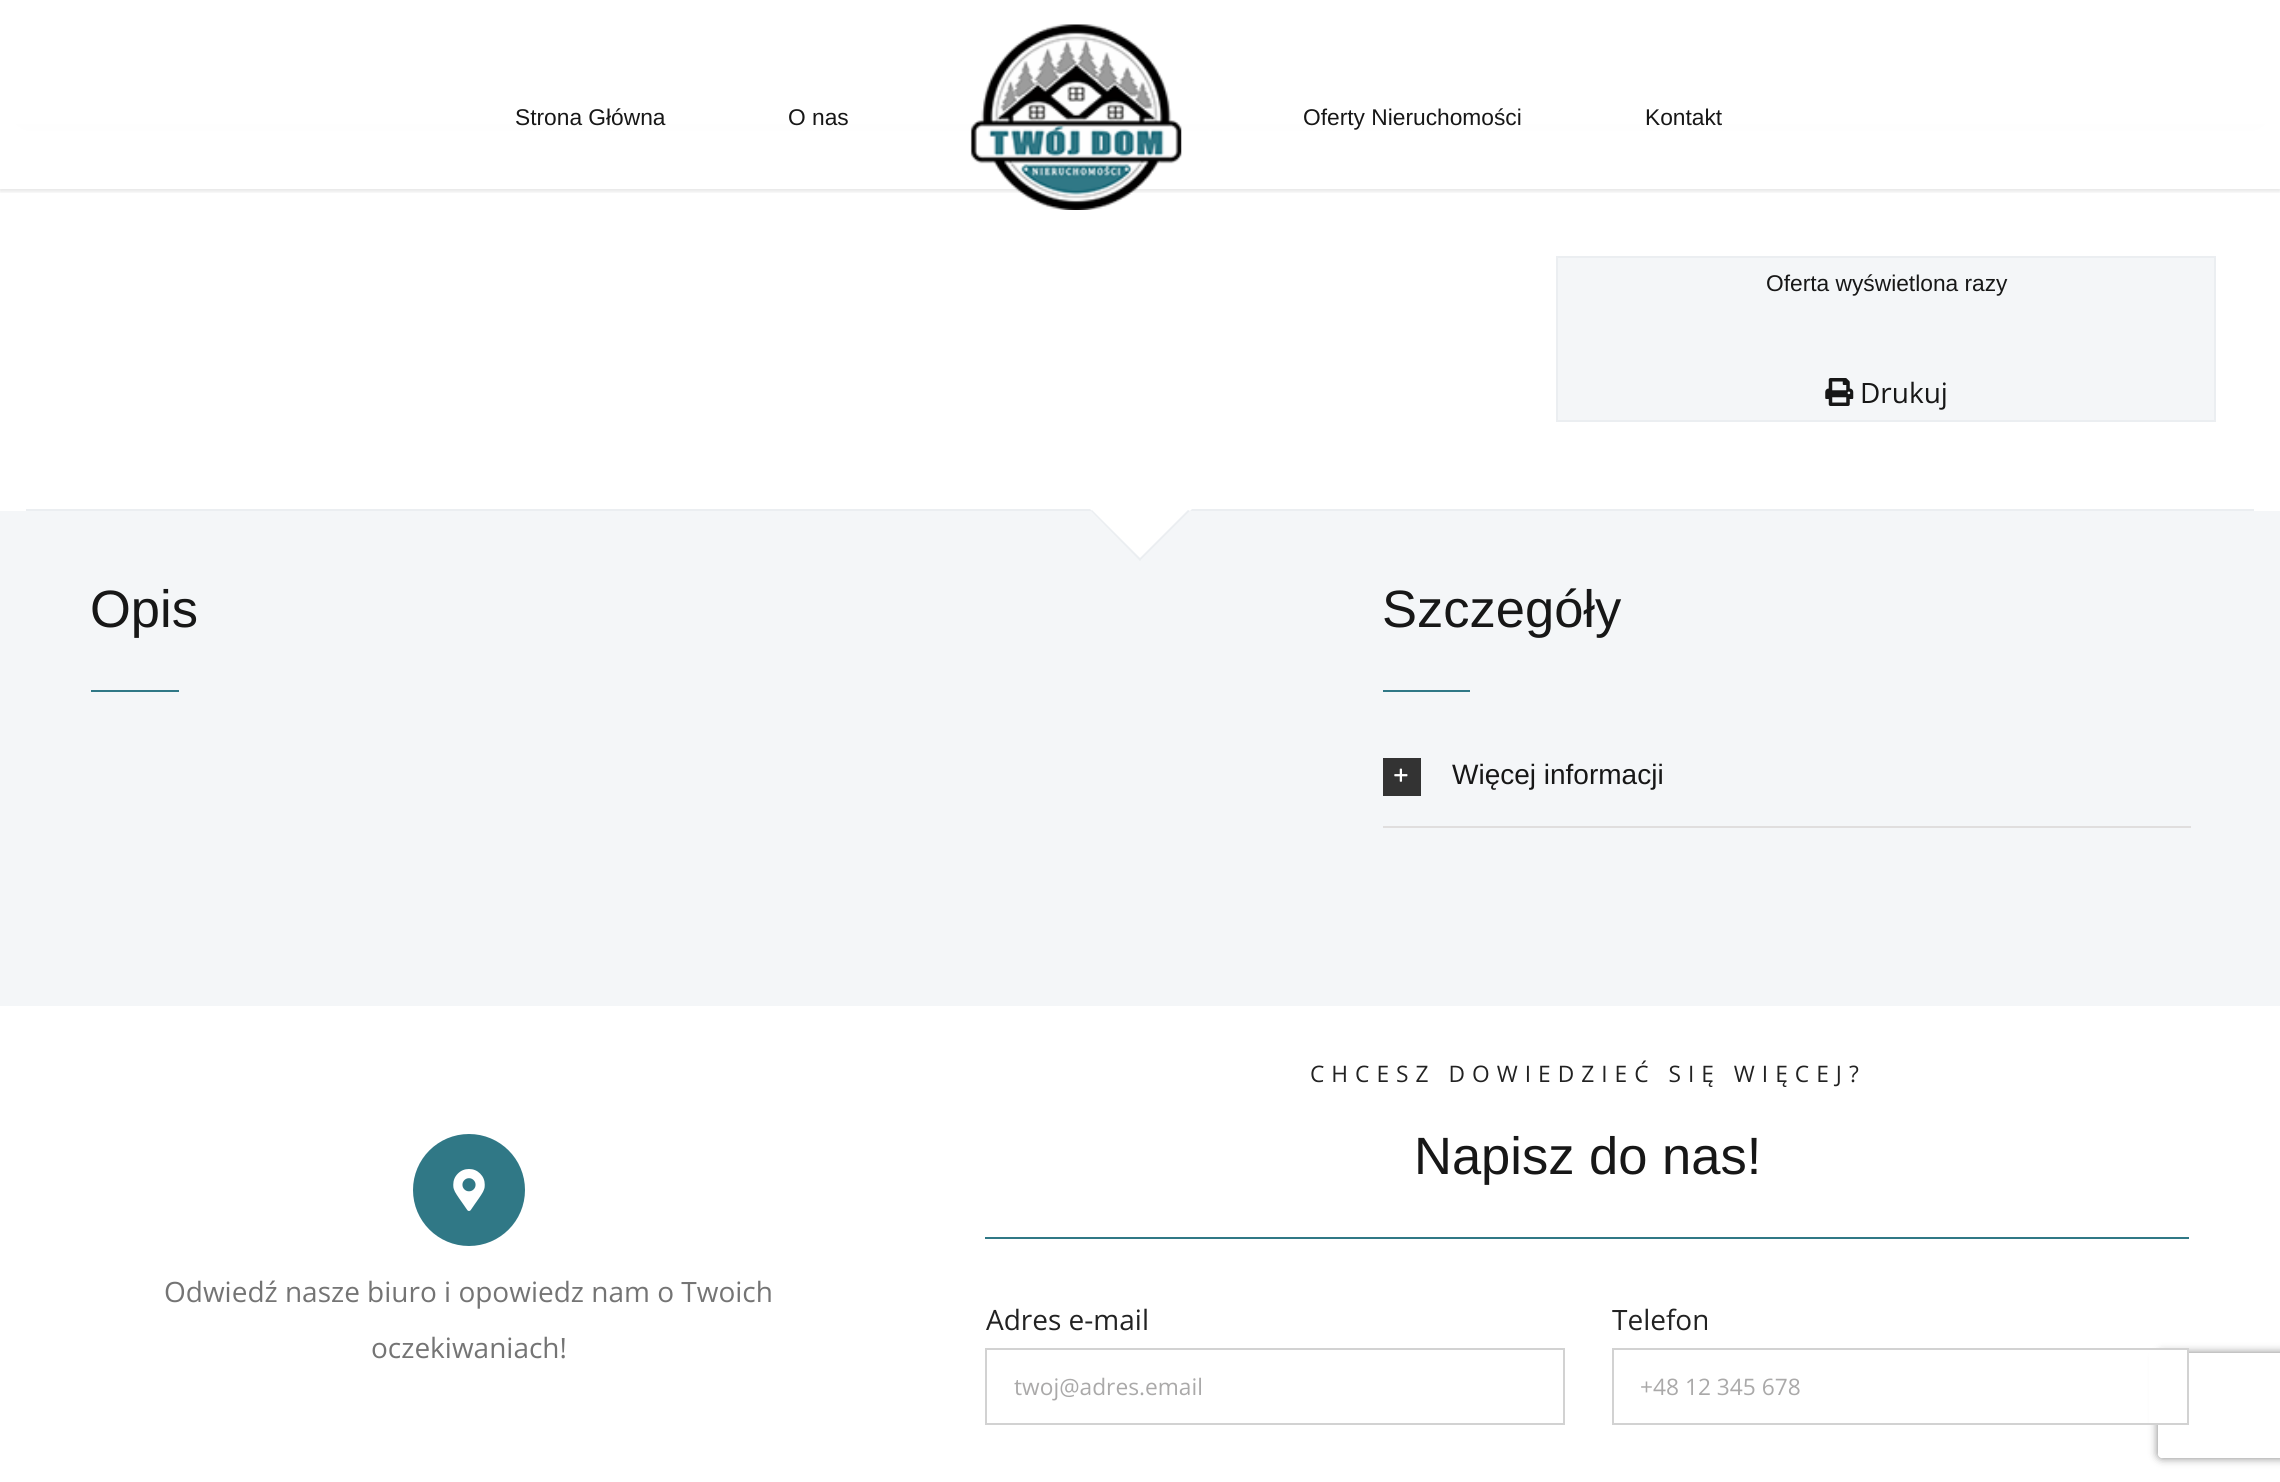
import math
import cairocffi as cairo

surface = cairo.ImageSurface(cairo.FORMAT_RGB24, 2280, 1482)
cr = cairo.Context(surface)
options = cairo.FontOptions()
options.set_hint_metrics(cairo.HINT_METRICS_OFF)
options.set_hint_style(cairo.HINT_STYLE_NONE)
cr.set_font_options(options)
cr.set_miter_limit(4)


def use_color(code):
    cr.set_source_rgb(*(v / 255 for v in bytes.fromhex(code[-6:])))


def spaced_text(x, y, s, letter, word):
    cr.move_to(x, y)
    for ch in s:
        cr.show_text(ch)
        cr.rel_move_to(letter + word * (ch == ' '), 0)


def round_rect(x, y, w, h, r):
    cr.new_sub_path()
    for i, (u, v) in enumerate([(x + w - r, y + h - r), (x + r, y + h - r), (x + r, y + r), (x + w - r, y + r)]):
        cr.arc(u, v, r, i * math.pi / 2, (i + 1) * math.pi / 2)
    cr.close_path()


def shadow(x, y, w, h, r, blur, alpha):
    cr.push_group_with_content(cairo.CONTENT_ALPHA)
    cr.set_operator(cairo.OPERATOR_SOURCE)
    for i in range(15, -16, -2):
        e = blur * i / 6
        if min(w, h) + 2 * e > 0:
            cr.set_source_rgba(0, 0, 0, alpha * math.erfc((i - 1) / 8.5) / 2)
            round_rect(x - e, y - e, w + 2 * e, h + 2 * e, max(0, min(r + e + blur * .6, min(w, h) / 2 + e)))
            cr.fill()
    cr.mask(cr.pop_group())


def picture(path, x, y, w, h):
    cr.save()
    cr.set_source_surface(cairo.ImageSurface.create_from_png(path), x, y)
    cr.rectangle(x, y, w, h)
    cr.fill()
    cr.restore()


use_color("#ffffff")
cr.paint()
use_color("#f4f6f8")
cr.rectangle(1557, 257, 658, 164)
cr.fill_preserve()
use_color("#ebeef1")
cr.stroke()
cr.save()
cr.rectangle(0, 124, 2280, 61)
cr.clip()
use_color("#000000")
shadow(4, -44, 2273, 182, 0, 44, 0.14)
cr.restore()
cr.save()
cr.rectangle(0, 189, 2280, 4)
cr.clip()
use_color("#000000")
shadow(0, 2, 2280, 189, 0, 2.5, 0.12)
cr.restore()
cr.set_source_rgba(1, 1, 1, 0.97)
cr.rectangle(0, 124, 2280, 65)
cr.fill()
cr.select_font_face("Liberation Sans")
cr.set_font_size(22.75)
use_color("#171717")
cr.move_to(515, 125)
cr.show_text("Strona Główna")
cr.move_to(788, 125)
cr.show_text("O nas")
picture("img1.png", 970, 24, 212, 186)
cr.move_to(1303, 125)
cr.show_text("Oferty Nieruchomości")
cr.move_to(1645, 125)
cr.show_text("Kontakt")
cr.move_to(1766, 291)
cr.show_text("Oferta wyświetlona razy")
picture("img2.png", 1825, 378, 29, 28)
cr.select_font_face("Open Sans")
cr.set_font_size(28)
cr.move_to(1860, 403)
cr.show_text("Drukuj")
use_color("#ebeef1")
cr.rectangle(26, 509, 2228, 2)
cr.fill()
use_color("#f4f6f8")
cr.rectangle(0, 511, 2280, 495)
cr.fill()
use_color("#ffffff")
cr.new_path()
cr.move_to(1090, 509)
cr.line_to(1192, 509)
cr.line_to(1141, 560)
cr.close_path()
cr.fill()
use_color("#ebeef1")
cr.new_path()
cr.move_to(1139, 559)
cr.line_to(1188, 510)
cr.line_to(1190, 511)
cr.line_to(1140, 561)
cr.close_path()
cr.fill()
cr.new_path()
cr.move_to(1091, 511)
cr.line_to(1092, 510)
cr.line_to(1141, 559)
cr.line_to(1140, 561)
cr.close_path()
cr.fill()
cr.select_font_face("Liberation Sans")
cr.set_font_size(52.5)
use_color("#171717")
cr.move_to(90, 627)
cr.show_text("Opis")
use_color("#307886")
cr.rectangle(91, 690, 88, 2)
cr.fill()
use_color("#171717")
cr.move_to(1382, 627)
cr.show_text("Szczegóły")
use_color("#307886")
cr.rectangle(1383, 690, 87, 2)
cr.fill()
use_color("#e0dede")
cr.rectangle(1383, 826, 808, 2)
cr.fill()
use_color("#333333")
cr.rectangle(1383, 758, 38, 38)
cr.fill()
picture("img3.png", 1394, 768, 14, 14)
cr.set_font_size(28)
use_color("#171717")
cr.move_to(1452, 784)
cr.show_text("Więcej informacji")
use_color("#307886")
cr.new_path()
cr.arc(469, 1190, 55, 0, 2 * math.pi)
cr.fill_preserve()
cr.stroke()
picture("img4.png", 453, 1169, 32, 42)
cr.select_font_face("Open Sans")
use_color("#747474")
cr.move_to(164, 1302)
cr.show_text("Odwiedź nasze biuro i opowiedz nam o Twoich")
cr.move_to(371, 1358)
cr.show_text("oczekiwaniach!")
cr.set_font_size(22.75)
use_color("#222222")
spaced_text(1310, 1082, "CHCESZ DOWIEDZIEĆ SIĘ WIĘCEJ?", 7, 0)
cr.select_font_face("Liberation Sans")
cr.set_font_size(52.5)
use_color("#171717")
cr.move_to(1414, 1174)
cr.show_text("Napisz do nas!")
use_color("#307886")
cr.rectangle(985, 1237, 1204, 2)
cr.fill()
cr.select_font_face("Open Sans")
cr.set_font_size(28)
use_color("#222222")
cr.move_to(986, 1330)
cr.show_text("Adres e-mail")
cr.rectangle(986, 1349, 578, 75)
use_color("#d2d2d2")
cr.stroke()
cr.set_font_size(22.75)
use_color("#aaa9a9")
cr.move_to(1014, 1395)
cr.show_text("twoj@adres.email")
cr.set_font_size(28)
use_color("#222222")
cr.move_to(1612, 1330)
cr.show_text("Telefon")
cr.save()
cr.set_fill_rule(cairo.FILL_RULE_EVEN_ODD)
cr.new_path()
cr.move_to(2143, 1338)
cr.line_to(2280, 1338)
cr.line_to(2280, 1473)
cr.line_to(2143, 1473)
cr.close_path()
cr.move_to(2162, 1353)
cr.line_to(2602, 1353)
cr.curve_to(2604, 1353, 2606, 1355, 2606, 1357)
cr.line_to(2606, 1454)
cr.curve_to(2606, 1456, 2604, 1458, 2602, 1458)
cr.line_to(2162, 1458)
cr.curve_to(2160, 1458, 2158, 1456, 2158, 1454)
cr.line_to(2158, 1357)
cr.curve_to(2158, 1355, 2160, 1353, 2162, 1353)
cr.close_path()
cr.clip()
use_color("#808080")
shadow(2158, 1353, 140, 105, 4, 4.5, 1)
cr.restore()
use_color("#ffffff")
cr.rectangle(2149, 1350, 38, 73)
cr.fill()
cr.rectangle(1613, 1349, 575, 75)
use_color("#d2d2d2")
cr.stroke()
cr.set_font_size(22.75)
use_color("#aaa9a9")
cr.move_to(1640, 1395)
cr.show_text("+48 12 345 678")
surface.write_to_png("result.png")
